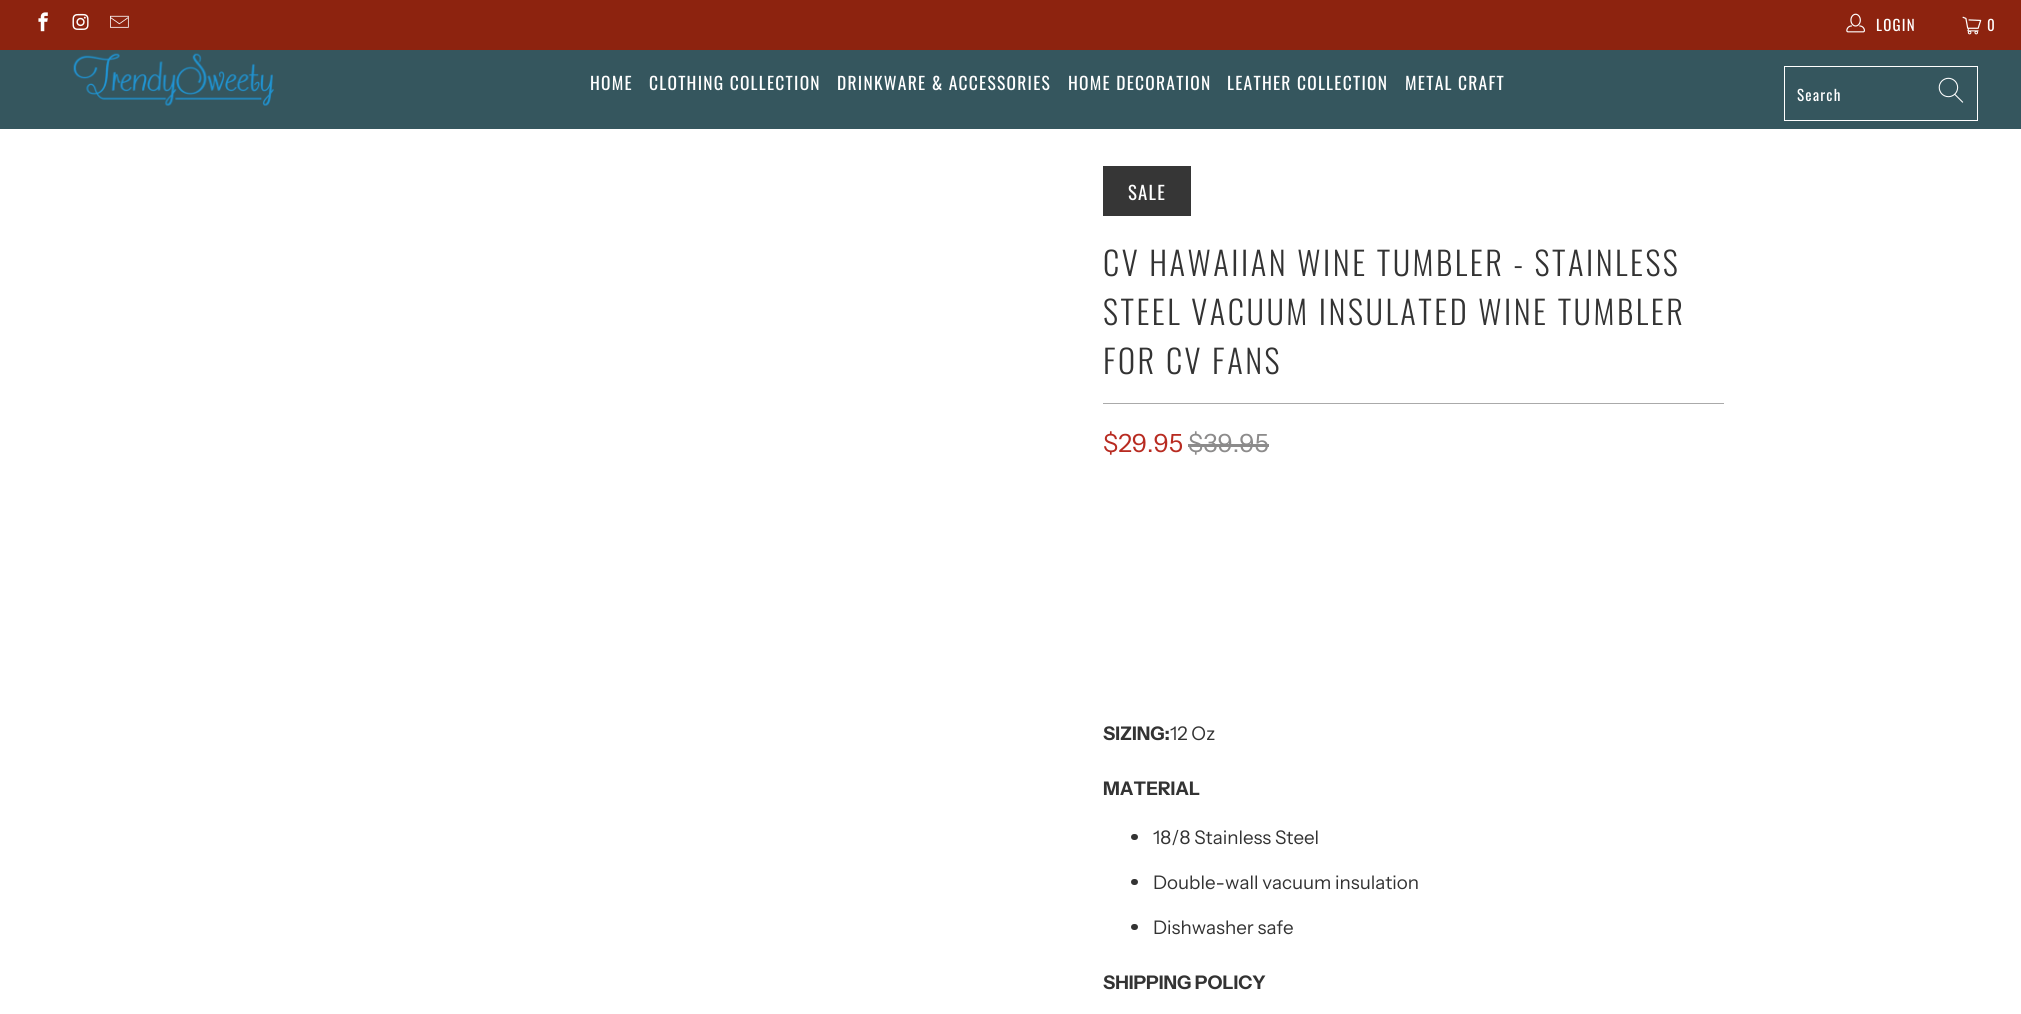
import math
import cairocffi as cairo

surface = cairo.ImageSurface(cairo.FORMAT_RGB24, 2021, 1014)
cr = cairo.Context(surface)
options = cairo.FontOptions()
options.set_hint_metrics(cairo.HINT_METRICS_OFF)
options.set_hint_style(cairo.HINT_STYLE_NONE)
cr.set_font_options(options)
cr.set_miter_limit(4)


def use_color(code):
    cr.set_source_rgb(*(v / 255 for v in bytes.fromhex(code[-6:])))


def spaced_text(x, y, s, letter, word):
    cr.move_to(x, y)
    for ch in s:
        cr.show_text(ch)
        cr.rel_move_to(letter + word * (ch == ' '), 0)


def round_rect(x, y, w, h, r):
    cr.new_sub_path()
    for i, (u, v) in enumerate([(x + w - r, y + h - r), (x + r, y + h - r), (x + r, y + r), (x + w - r, y + r)]):
        cr.arc(u, v, r, i * math.pi / 2, (i + 1) * math.pi / 2)
    cr.close_path()


def picture(path, x, y, w, h):
    cr.save()
    cr.set_source_surface(cairo.ImageSurface.create_from_png(path), x, y)
    cr.rectangle(x, y, w, h)
    cr.fill()
    cr.restore()


use_color("#ffffff")
cr.paint()
use_color("#8d230f")
cr.rectangle(0, 0, 2021, 50)
cr.fill()
picture("img1.png", 38, 12, 10, 20)
picture("img2.png", 72, 13, 17, 17)
picture("img3.png", 110, 15, 19, 13)
picture("img4.png", 1846, 13, 19, 20)
cr.select_font_face("Oswald")
cr.set_font_size(15)
use_color("#ffffff")
spaced_text(1876, 31, "LOGIN", 1.25, 0)
picture("img5.png", 1962, 16, 20, 19)
spaced_text(1987, 31, "0", 1.25, 0)
use_color("#35565e")
cr.rectangle(0, 50, 2021, 79)
cr.fill()
picture("img6.png", 73, 53, 201, 53)
cr.set_font_size(17.5)
use_color("#ffffff")
spaced_text(590, 90, "HOME", 1.25, 0)
spaced_text(649, 90, "CLOTHING COLLECTION", 1.25, 0)
spaced_text(837, 90, "DRINKWARE & ACCESSORIES", 1.25, 0)
spaced_text(1068, 90, "HOME DECORATION", 1.25, 0)
spaced_text(1227, 90, "LEATHER COLLECTION", 1.25, 0)
spaced_text(1405, 90, "METAL CRAFT", 1.25, 0)
cr.rectangle(1784.5, 66.5, 193, 54)
cr.set_line_width(1)
cr.stroke()
cr.set_font_size(15)
spaced_text(1797, 101, "Search", 1.25, 0)
picture("img7.png", 1938, 77, 26, 26)
use_color("#363636")
cr.rectangle(1103, 166, 88, 50)
cr.fill()
cr.set_font_size(18.75)
use_color("#ffffff")
spaced_text(1128, 200, "SALE", 1.25, 0)
cr.select_font_face("Oswald Light")
cr.set_font_size(32.5)
use_color("#333333")
spaced_text(1103, 276, "CV HAWAIIAN WINE TUMBLER - STAINLESS", 2.5, 0)
spaced_text(1103, 325, "STEEL VACUUM INSULATED WINE TUMBLER", 2.5, 0)
spaced_text(1103, 374, "FOR CV FANS", 2.5, 0)
use_color("#aaaaaa")
cr.rectangle(1103, 403, 621, 1)
cr.fill()
cr.select_font_face("Instrument Sans")
cr.set_font_size(25)
use_color("#b82b21")
cr.move_to(1103, 452)
cr.show_text("$29.95")
use_color("#8c8b8b")
cr.move_to(1188, 452)
cr.show_text("$39.95")
cr.rectangle(1188, 444, 81, 3)
cr.fill()
cr.select_font_face("Instrument Sans", cairo.FONT_SLANT_NORMAL, cairo.FONT_WEIGHT_BOLD)
cr.set_font_size(18.75)
use_color("#333333")
cr.move_to(1103, 740)
cr.show_text("SIZING:")
cr.select_font_face("Instrument Sans")
cr.move_to(1170, 740)
cr.show_text("12 Oz")
cr.select_font_face("Instrument Sans", cairo.FONT_SLANT_NORMAL, cairo.FONT_WEIGHT_BOLD)
cr.move_to(1103, 795)
cr.show_text("MATERIAL")
round_rect(1131, 834, 7, 6, 3)
cr.fill()
cr.select_font_face("Instrument Sans")
cr.move_to(1153, 844)
cr.show_text("18/8 Stainless Steel")
round_rect(1131, 879, 7, 6, 3)
cr.fill()
cr.move_to(1153, 889)
cr.show_text("Double-wall vacuum insulation")
round_rect(1131, 924, 7, 6, 3)
cr.fill()
cr.move_to(1153, 934)
cr.show_text("Dishwasher safe")
cr.select_font_face("Instrument Sans", cairo.FONT_SLANT_NORMAL, cairo.FONT_WEIGHT_BOLD)
cr.move_to(1103, 989)
cr.show_text("SHIPPING POLICY")
surface.write_to_png("result.png")
